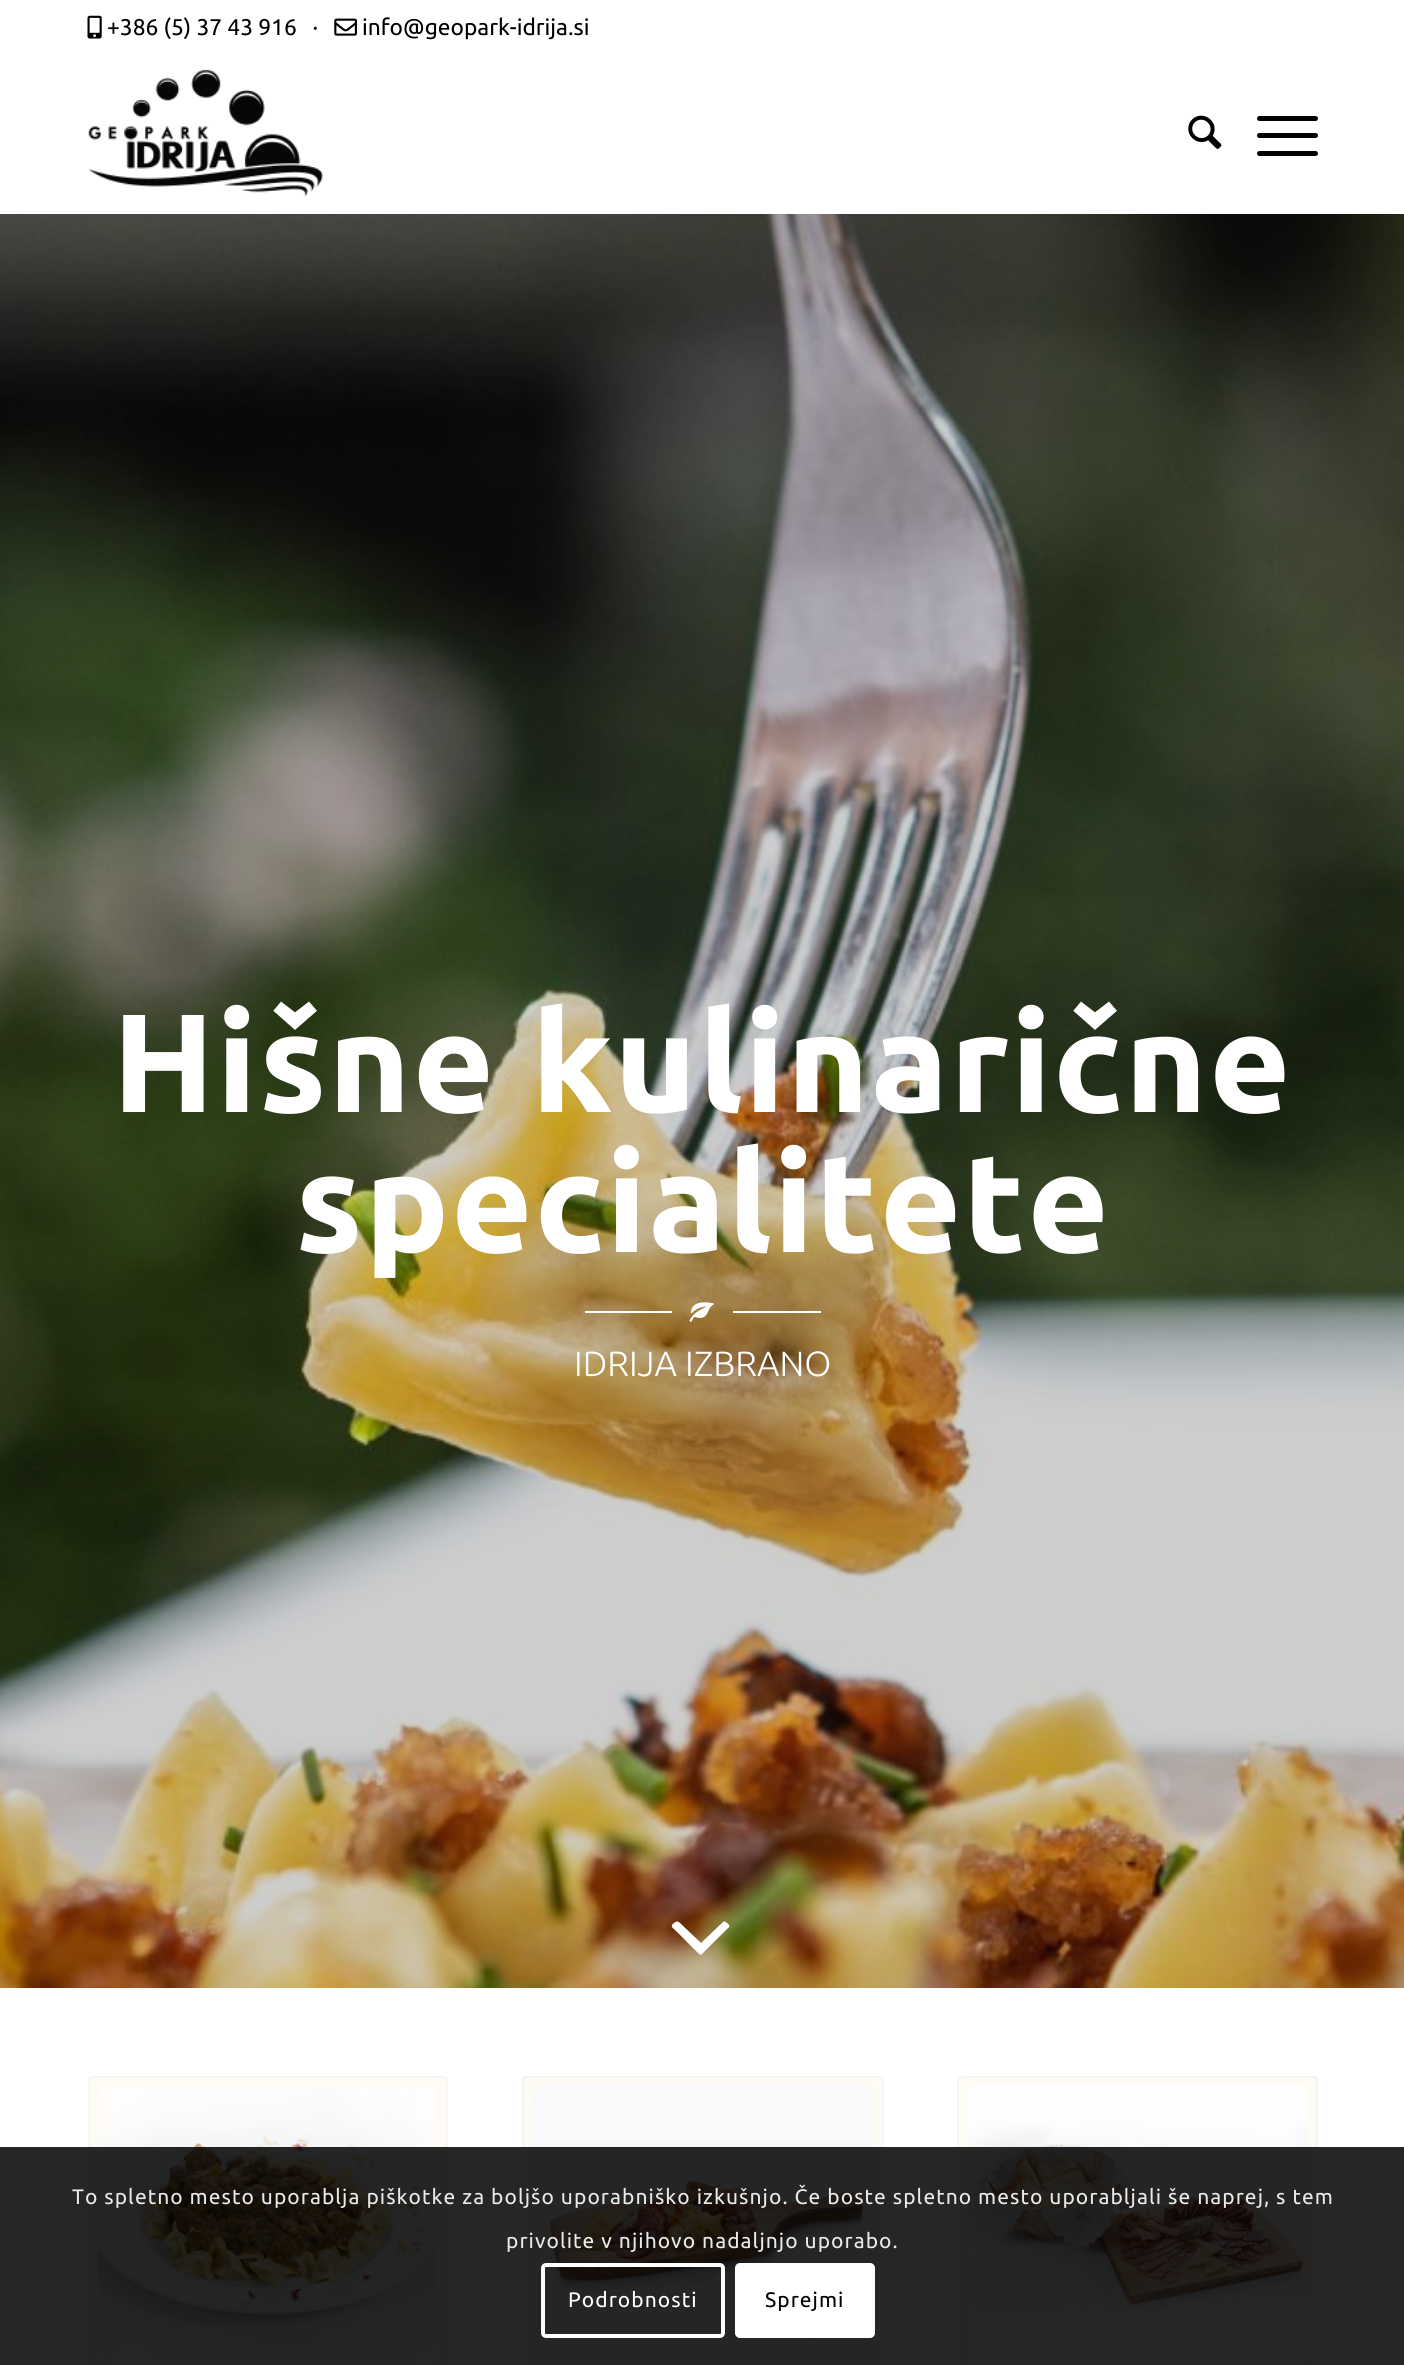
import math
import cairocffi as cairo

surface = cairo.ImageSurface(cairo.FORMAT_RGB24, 1404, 2365)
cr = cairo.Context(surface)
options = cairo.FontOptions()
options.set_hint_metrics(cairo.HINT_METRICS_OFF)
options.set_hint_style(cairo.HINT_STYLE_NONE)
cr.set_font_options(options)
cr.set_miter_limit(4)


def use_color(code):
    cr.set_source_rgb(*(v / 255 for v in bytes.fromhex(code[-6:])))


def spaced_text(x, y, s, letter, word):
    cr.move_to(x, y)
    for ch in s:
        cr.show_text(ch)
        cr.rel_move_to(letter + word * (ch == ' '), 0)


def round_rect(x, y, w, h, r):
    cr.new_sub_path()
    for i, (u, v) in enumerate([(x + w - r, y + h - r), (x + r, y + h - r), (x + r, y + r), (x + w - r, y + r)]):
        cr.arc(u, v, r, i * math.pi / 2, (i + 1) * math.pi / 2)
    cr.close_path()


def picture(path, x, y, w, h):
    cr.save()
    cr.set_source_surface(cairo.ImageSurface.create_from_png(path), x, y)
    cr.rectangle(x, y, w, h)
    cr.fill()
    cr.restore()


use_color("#ffffff")
cr.paint()
picture("img1.png", 87, 15, 15, 24)
cr.select_font_face("Ubuntu")
cr.set_font_size(22.75)
use_color("#000000")
cr.move_to(107, 35)
cr.show_text("+386 (5) 37 43 916   ·")
picture("img2.png", 334, 18, 23, 18)
cr.move_to(362, 35)
cr.show_text("info@geopark-idrija.si")
picture("img3.png", 88, 69, 235, 128)
picture("img4.png", 1188, 115, 34, 34)
round_rect(1257, 133, 61, 5, 2.5)
cr.fill()
round_rect(1257, 116, 61, 5, 2.5)
cr.fill()
round_rect(1257, 151, 61, 5, 2.5)
cr.fill()
picture("img5.png", 0, 214, 1404, 1774)
cr.select_font_face("Ubuntu", cairo.FONT_SLANT_NORMAL, cairo.FONT_WEIGHT_BOLD)
cr.set_font_size(140)
use_color("#ffffff")
spaced_text(112, 1112, "Hišne kulinarične", 1.75, 0)
spaced_text(295, 1252, "specialitete", 1.75, 0)
cr.rectangle(585, 1311, 87, 2)
cr.fill()
picture("img6.png", 689, 1302, 25, 20)
cr.rectangle(733, 1311, 88, 2)
cr.fill()
cr.select_font_face("Ubuntu Light")
cr.set_font_size(35)
cr.move_to(574, 1376)
cr.show_text("IDRIJA IZBRANO")
cr.new_path()
cr.move_to(722, 1923)
cr.curve_to(723, 1921, 725, 1921, 727, 1923)
cr.curve_to(730, 1925, 730, 1927, 727, 1929)
cr.line_to(703, 1953)
cr.curve_to(702, 1955, 700, 1955, 698, 1953)
cr.line_to(674, 1929)
cr.curve_to(671, 1927, 671, 1925, 674, 1923)
cr.curve_to(676, 1921, 678, 1921, 680, 1923)
cr.line_to(701, 1943)
cr.close_path()
cr.fill()
use_color("#fdfbf4")
round_rect(89, 2077, 358, 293, 3)
cr.fill_preserve()
use_color("#f5f5f5")
cr.stroke()
picture("img7.png", 98, 2086, 339, 276)
use_color("#fdfbf4")
round_rect(523, 2077, 360, 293, 3)
cr.fill_preserve()
use_color("#f5f5f5")
cr.stroke()
picture("img8.png", 532, 2086, 341, 275)
use_color("#fdfbf4")
round_rect(958, 2077, 359, 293, 3)
cr.fill_preserve()
use_color("#f5f5f5")
cr.stroke()
picture("img9.png", 968, 2086, 339, 275)
cr.set_source_rgba(0, 0, 0, 0.85)
cr.rectangle(0, 2147, 1404, 218)
cr.fill()
cr.select_font_face("Ubuntu")
cr.set_font_size(21)
use_color("#e9e9e8")
spaced_text(72, 2204, "To spletno mesto uporablja piškotke za boljšo uporabniško izkušnjo. Če boste spletno mesto uporabljali še naprej, s tem", 1.05, 0)
spaced_text(506, 2248, "privolite v njihovo nadaljnjo uporabo.", 1.05, 0)
round_rect(543, 2265, 180, 71, 3)
use_color("#ffffff")
cr.set_line_width(4)
cr.stroke()
spaced_text(568, 2307, "Podrobnosti", 1.05, 0)
round_rect(735, 2263, 140, 75, 5)
cr.fill()
use_color("#000000")
spaced_text(765, 2307, "Sprejmi", 1.05, 0)
surface.write_to_png("result.png")
